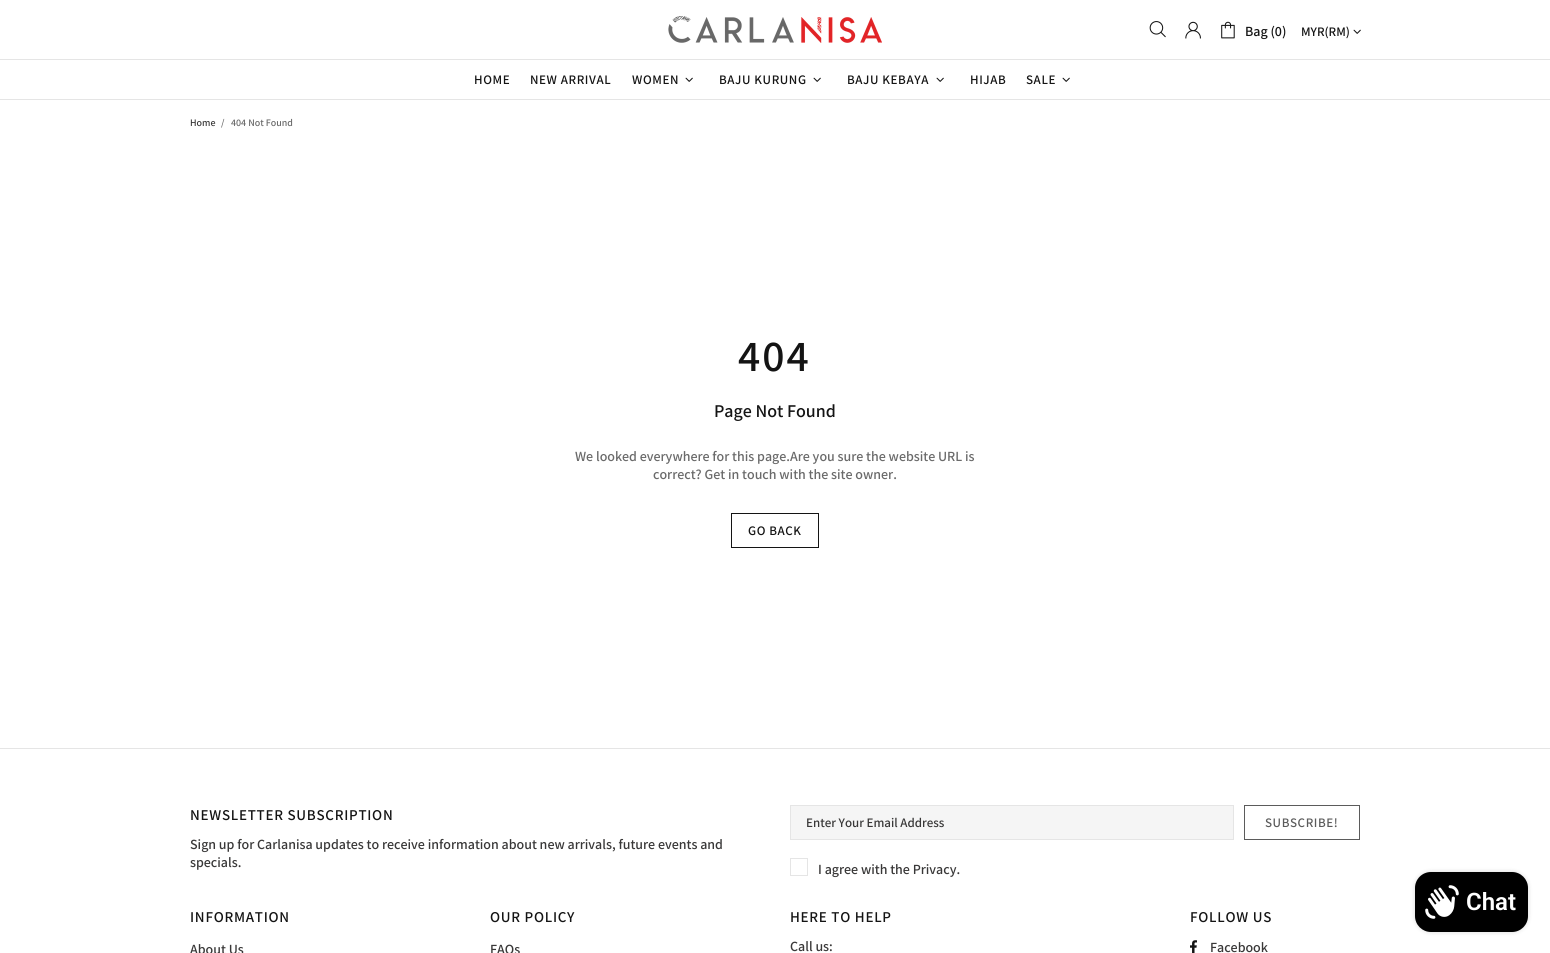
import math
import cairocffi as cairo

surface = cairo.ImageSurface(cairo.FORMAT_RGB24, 1550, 953)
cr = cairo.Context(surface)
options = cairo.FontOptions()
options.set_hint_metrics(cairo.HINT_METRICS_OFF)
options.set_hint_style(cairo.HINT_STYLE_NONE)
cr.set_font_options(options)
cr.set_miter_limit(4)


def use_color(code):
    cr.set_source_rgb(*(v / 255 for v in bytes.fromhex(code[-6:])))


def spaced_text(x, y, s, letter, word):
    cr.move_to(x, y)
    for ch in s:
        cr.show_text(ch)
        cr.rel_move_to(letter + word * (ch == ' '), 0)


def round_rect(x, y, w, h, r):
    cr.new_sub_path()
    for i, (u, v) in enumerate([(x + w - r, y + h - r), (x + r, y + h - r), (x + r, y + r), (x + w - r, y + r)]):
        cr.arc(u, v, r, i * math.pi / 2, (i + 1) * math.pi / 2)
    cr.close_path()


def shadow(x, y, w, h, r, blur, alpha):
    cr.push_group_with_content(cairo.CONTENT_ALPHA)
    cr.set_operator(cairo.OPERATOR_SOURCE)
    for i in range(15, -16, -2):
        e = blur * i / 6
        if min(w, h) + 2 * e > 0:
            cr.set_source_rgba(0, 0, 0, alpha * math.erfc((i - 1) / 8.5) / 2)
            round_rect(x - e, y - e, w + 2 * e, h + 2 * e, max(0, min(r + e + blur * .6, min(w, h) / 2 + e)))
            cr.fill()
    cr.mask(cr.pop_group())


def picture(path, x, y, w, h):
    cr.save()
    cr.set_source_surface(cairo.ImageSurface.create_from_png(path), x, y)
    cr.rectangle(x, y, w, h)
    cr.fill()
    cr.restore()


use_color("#ffffff")
cr.paint()
use_color("#e5e5e5")
cr.rectangle(0, 59, 1550, 1)
cr.fill()
picture("img1.png", 668, 16, 214, 27)
picture("img2.png", 1149, 21, 17, 17)
picture("img3.png", 1185, 21, 16, 18)
picture("img4.png", 1221, 21, 14, 18)
cr.select_font_face("Assistant SemiBold")
cr.set_font_size(14)
use_color("#141414")
cr.move_to(1245, 36)
cr.show_text("Bag (0)")
cr.set_font_size(13)
cr.move_to(1301, 36)
cr.show_text("MYR(RM)")
picture("img5.png", 1353, 29, 8, 5)
use_color("#e5e5e5")
cr.rectangle(0, 99, 1550, 1)
cr.fill()
use_color("#141414")
spaced_text(474, 84, "HOME", 0.6, 0)
spaced_text(530, 84, "NEW ARRIVAL", 0.6, 0)
spaced_text(632, 84, "WOMEN", 0.6, 0)
picture("img5.png", 685, 77, 8, 5)
spaced_text(719, 84, "BAJU KURUNG", 0.6, 0)
picture("img5.png", 813, 77, 8, 5)
spaced_text(847, 84, "BAJU KEBAYA", 0.6, 0)
picture("img5.png", 936, 77, 8, 5)
spaced_text(970, 84, "HIJAB", 0.6, 0)
spaced_text(1026, 84, "SALE", 0.6, 0)
picture("img5.png", 1062, 77, 8, 5)
cr.set_font_size(10)
use_color("#393838")
cr.move_to(190, 126)
cr.show_text("Home")
use_color("#6a6a6a")
cr.move_to(221, 126)
cr.show_text("/")
cr.move_to(231, 126)
cr.show_text("404 Not Found")
cr.set_font_size(44)
use_color("#141414")
spaced_text(738, 371, "404", 2, 0)
cr.set_font_size(18)
cr.move_to(714, 417)
cr.show_text("Page Not Found")
cr.set_font_size(14)
use_color("#6a6a6a")
cr.move_to(575, 461)
cr.show_text("We looked everywhere for this page.Are you sure the website URL is")
cr.move_to(653, 479)
cr.show_text("correct? Get in touch with the site owner.")
cr.rectangle(731.5, 513.5, 87, 34)
use_color("#141414")
cr.set_line_width(1)
cr.stroke()
cr.set_font_size(13)
spaced_text(748, 535, "GO BACK", 0.6, 0)
use_color("#e5e5e5")
cr.rectangle(0, 748, 1550, 1)
cr.fill()
cr.set_font_size(15)
use_color("#141414")
spaced_text(190, 820, "NEWSLETTER SUBSCRIPTION", 0.75, 0)
cr.set_font_size(14)
use_color("#393838")
cr.move_to(190, 849)
cr.show_text("Sign up for Carlanisa updates to receive information about new arrivals, future events and")
cr.move_to(190, 867)
cr.show_text("specials.")
use_color("#f5f5f5")
cr.rectangle(790.5, 805.5, 443, 34)
cr.fill_preserve()
use_color("#e5e5e5")
cr.stroke()
cr.set_font_size(13)
use_color("#393838")
cr.move_to(806, 827)
cr.show_text("Enter Your Email Address")
cr.rectangle(1244.5, 805.5, 115, 34)
use_color("#5b5b5b")
cr.stroke()
spaced_text(1265, 827, "SUBSCRIBE!", 0.6, 0)
cr.rectangle(790.5, 858.5, 17, 17)
use_color("#e5e5e5")
cr.stroke()
cr.set_font_size(14)
use_color("#393838")
cr.move_to(818, 874)
cr.show_text("I agree with the Privacy.")
cr.set_font_size(15)
use_color("#141414")
spaced_text(190, 922, "INFORMATION", 0.75, 0)
cr.set_font_size(14)
use_color("#393838")
cr.move_to(190, 954)
cr.show_text("About Us")
cr.set_font_size(15)
use_color("#141414")
spaced_text(490, 922, "OUR POLICY", 0.75, 0)
cr.set_font_size(14)
use_color("#393838")
cr.move_to(490, 954)
cr.show_text("FAQs")
cr.set_font_size(15)
use_color("#141414")
spaced_text(790, 922, "HERE TO HELP", 0.75, 0)
cr.set_font_size(14)
use_color("#393838")
cr.move_to(790, 951)
cr.show_text("Call us:")
cr.set_font_size(15)
use_color("#141414")
spaced_text(1190, 922, "FOLLOW US", 0.75, 0)
picture("img6.png", 1190, 940, 7, 13)
cr.set_font_size(14)
use_color("#393838")
cr.move_to(1210, 952)
cr.show_text("Facebook")
use_color("#000000")
shadow(1415, 872, 113, 60, 16, 2.5, 0.15)
use_color("#000000")
round_rect(1415, 872, 113, 60, 16)
cr.fill()
picture("img7.png", 1425, 885, 34, 34)
cr.select_font_face("Roboto SemiBold")
cr.set_font_size(24)
use_color("#ffffff")
cr.move_to(1466, 910)
cr.show_text("Chat")
surface.write_to_png("result.png")
